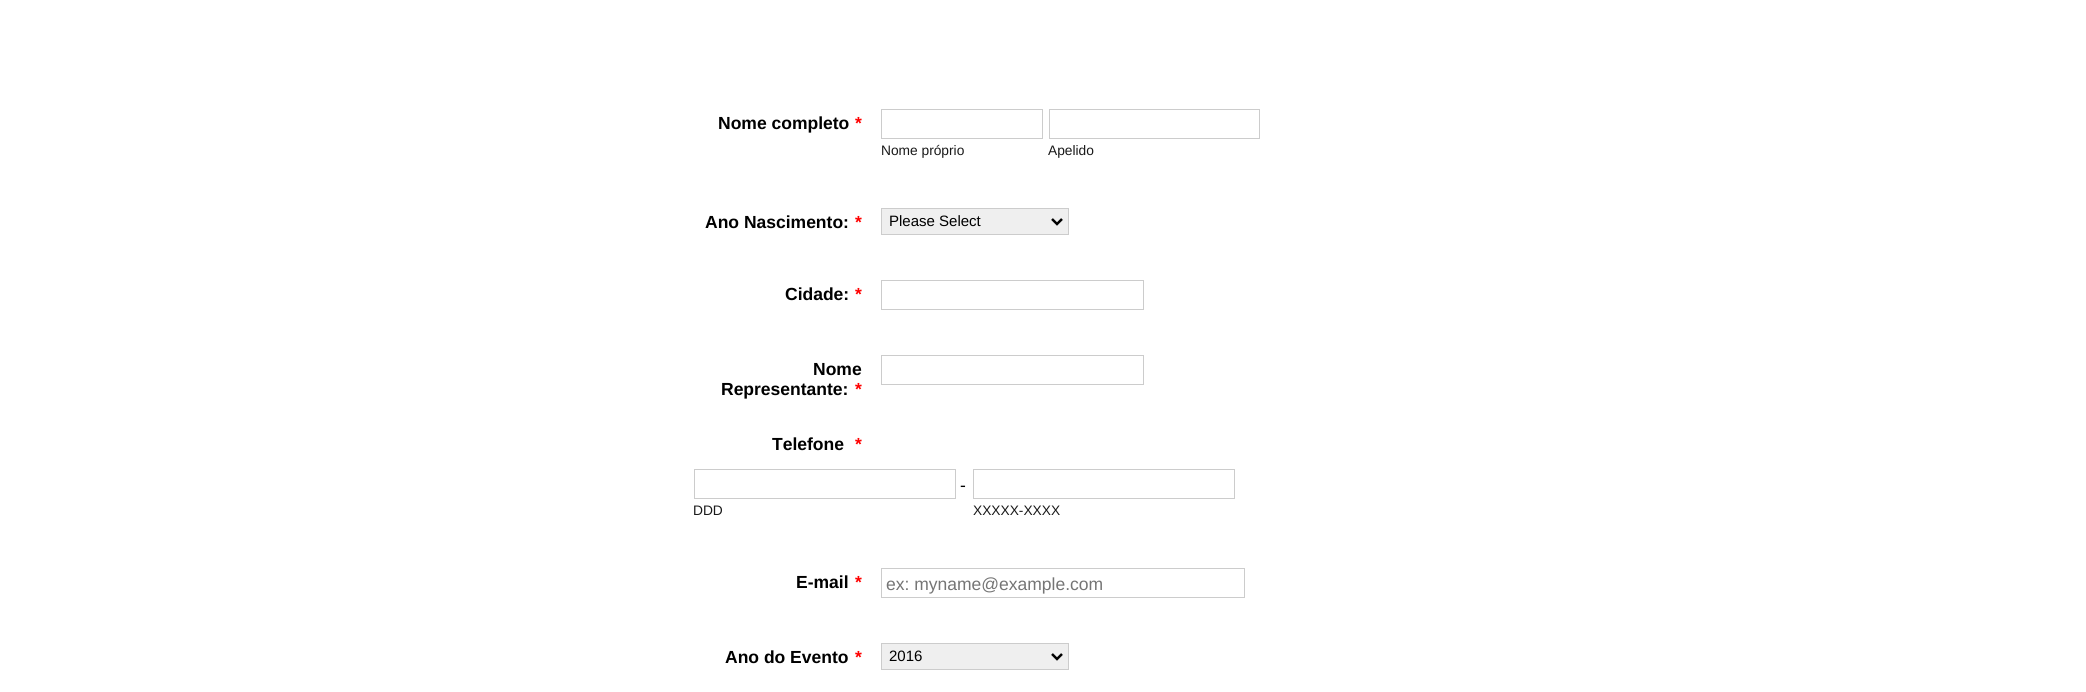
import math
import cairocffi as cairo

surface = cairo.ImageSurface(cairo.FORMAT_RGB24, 2086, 692)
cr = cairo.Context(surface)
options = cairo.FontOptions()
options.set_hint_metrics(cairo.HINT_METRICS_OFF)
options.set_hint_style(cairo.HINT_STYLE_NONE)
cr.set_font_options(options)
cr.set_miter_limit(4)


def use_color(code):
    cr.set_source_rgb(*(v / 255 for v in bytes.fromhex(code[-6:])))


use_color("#ffffff")
cr.paint()
cr.select_font_face("Arimo", cairo.FONT_SLANT_NORMAL, cairo.FONT_WEIGHT_BOLD)
cr.set_font_size(17.5)
use_color("#000000")
cr.move_to(718, 129)
cr.show_text("Nome completo")
use_color("#ff0000")
cr.move_to(855, 129)
cr.show_text("*")
cr.rectangle(881.5, 109.5, 161, 29)
use_color("#cccccc")
cr.set_line_width(1)
cr.stroke()
cr.select_font_face("Arimo")
cr.set_font_size(13.75)
use_color("#1a1a1a")
cr.move_to(881, 155)
cr.show_text("Nome próprio")
cr.rectangle(1049.5, 109.5, 210, 29)
use_color("#cccccc")
cr.stroke()
use_color("#1a1a1a")
cr.move_to(1048, 155)
cr.show_text("Apelido")
cr.select_font_face("Arimo", cairo.FONT_SLANT_NORMAL, cairo.FONT_WEIGHT_BOLD)
cr.set_font_size(17.5)
use_color("#000000")
cr.move_to(705, 228)
cr.show_text("Ano Nascimento:")
use_color("#ff0000")
cr.move_to(855, 228)
cr.show_text("*")
use_color("#efefef")
cr.rectangle(881.5, 208.5, 187, 26)
cr.fill_preserve()
use_color("#cccccc")
cr.stroke()
cr.new_path()
cr.move_to(1052, 219)
cr.line_to(1057, 224)
cr.line_to(1062, 219)
use_color("#000000")
cr.set_line_width(2.5)
cr.stroke()
cr.select_font_face("Arimo")
cr.set_font_size(15)
cr.move_to(889, 226)
cr.show_text("Please Select")
cr.select_font_face("Arimo", cairo.FONT_SLANT_NORMAL, cairo.FONT_WEIGHT_BOLD)
cr.set_font_size(17.5)
cr.move_to(785, 300)
cr.show_text("Cidade:")
use_color("#ff0000")
cr.move_to(855, 300)
cr.show_text("*")
cr.rectangle(881.5, 280.5, 262, 29)
use_color("#cccccc")
cr.set_line_width(1)
cr.stroke()
use_color("#000000")
cr.move_to(813, 375)
cr.show_text("Nome")
cr.move_to(721, 395)
cr.show_text("Representante:")
use_color("#ff0000")
cr.move_to(855, 395)
cr.show_text("*")
cr.rectangle(881.5, 355.5, 262, 29)
use_color("#cccccc")
cr.stroke()
use_color("#000000")
cr.move_to(772, 450)
cr.show_text("Telefone")
use_color("#ff0000")
cr.move_to(855, 450)
cr.show_text("*")
cr.rectangle(694.5, 469.5, 261, 29)
use_color("#cccccc")
cr.stroke()
cr.select_font_face("Arimo")
use_color("#000000")
cr.move_to(960, 491)
cr.show_text("-")
cr.set_font_size(13.75)
use_color("#1a1a1a")
cr.move_to(693, 515)
cr.show_text("DDD")
cr.rectangle(973.5, 469.5, 261, 29)
use_color("#cccccc")
cr.stroke()
use_color("#1a1a1a")
cr.move_to(973, 515)
cr.show_text("XXXXX-XXXX")
cr.select_font_face("Arimo", cairo.FONT_SLANT_NORMAL, cairo.FONT_WEIGHT_BOLD)
cr.set_font_size(17.5)
use_color("#000000")
cr.move_to(796, 588)
cr.show_text("E-mail")
use_color("#ff0000")
cr.move_to(855, 588)
cr.show_text("*")
cr.rectangle(881.5, 568.5, 363, 29)
use_color("#cccccc")
cr.stroke()
cr.select_font_face("Arimo")
use_color("#757575")
cr.move_to(886, 590)
cr.show_text("ex: myname@example.com")
cr.select_font_face("Arimo", cairo.FONT_SLANT_NORMAL, cairo.FONT_WEIGHT_BOLD)
use_color("#000000")
cr.move_to(725, 663)
cr.show_text("Ano do Evento")
use_color("#ff0000")
cr.move_to(855, 663)
cr.show_text("*")
use_color("#efefef")
cr.rectangle(881.5, 643.5, 187, 26)
cr.fill_preserve()
use_color("#cccccc")
cr.stroke()
cr.new_path()
cr.move_to(1052, 654)
cr.line_to(1057, 659)
cr.line_to(1062, 654)
use_color("#000000")
cr.set_line_width(2.5)
cr.stroke()
cr.select_font_face("Arimo")
cr.set_font_size(15)
cr.move_to(889, 661)
cr.show_text("2016")
surface.write_to_png("result.png")
